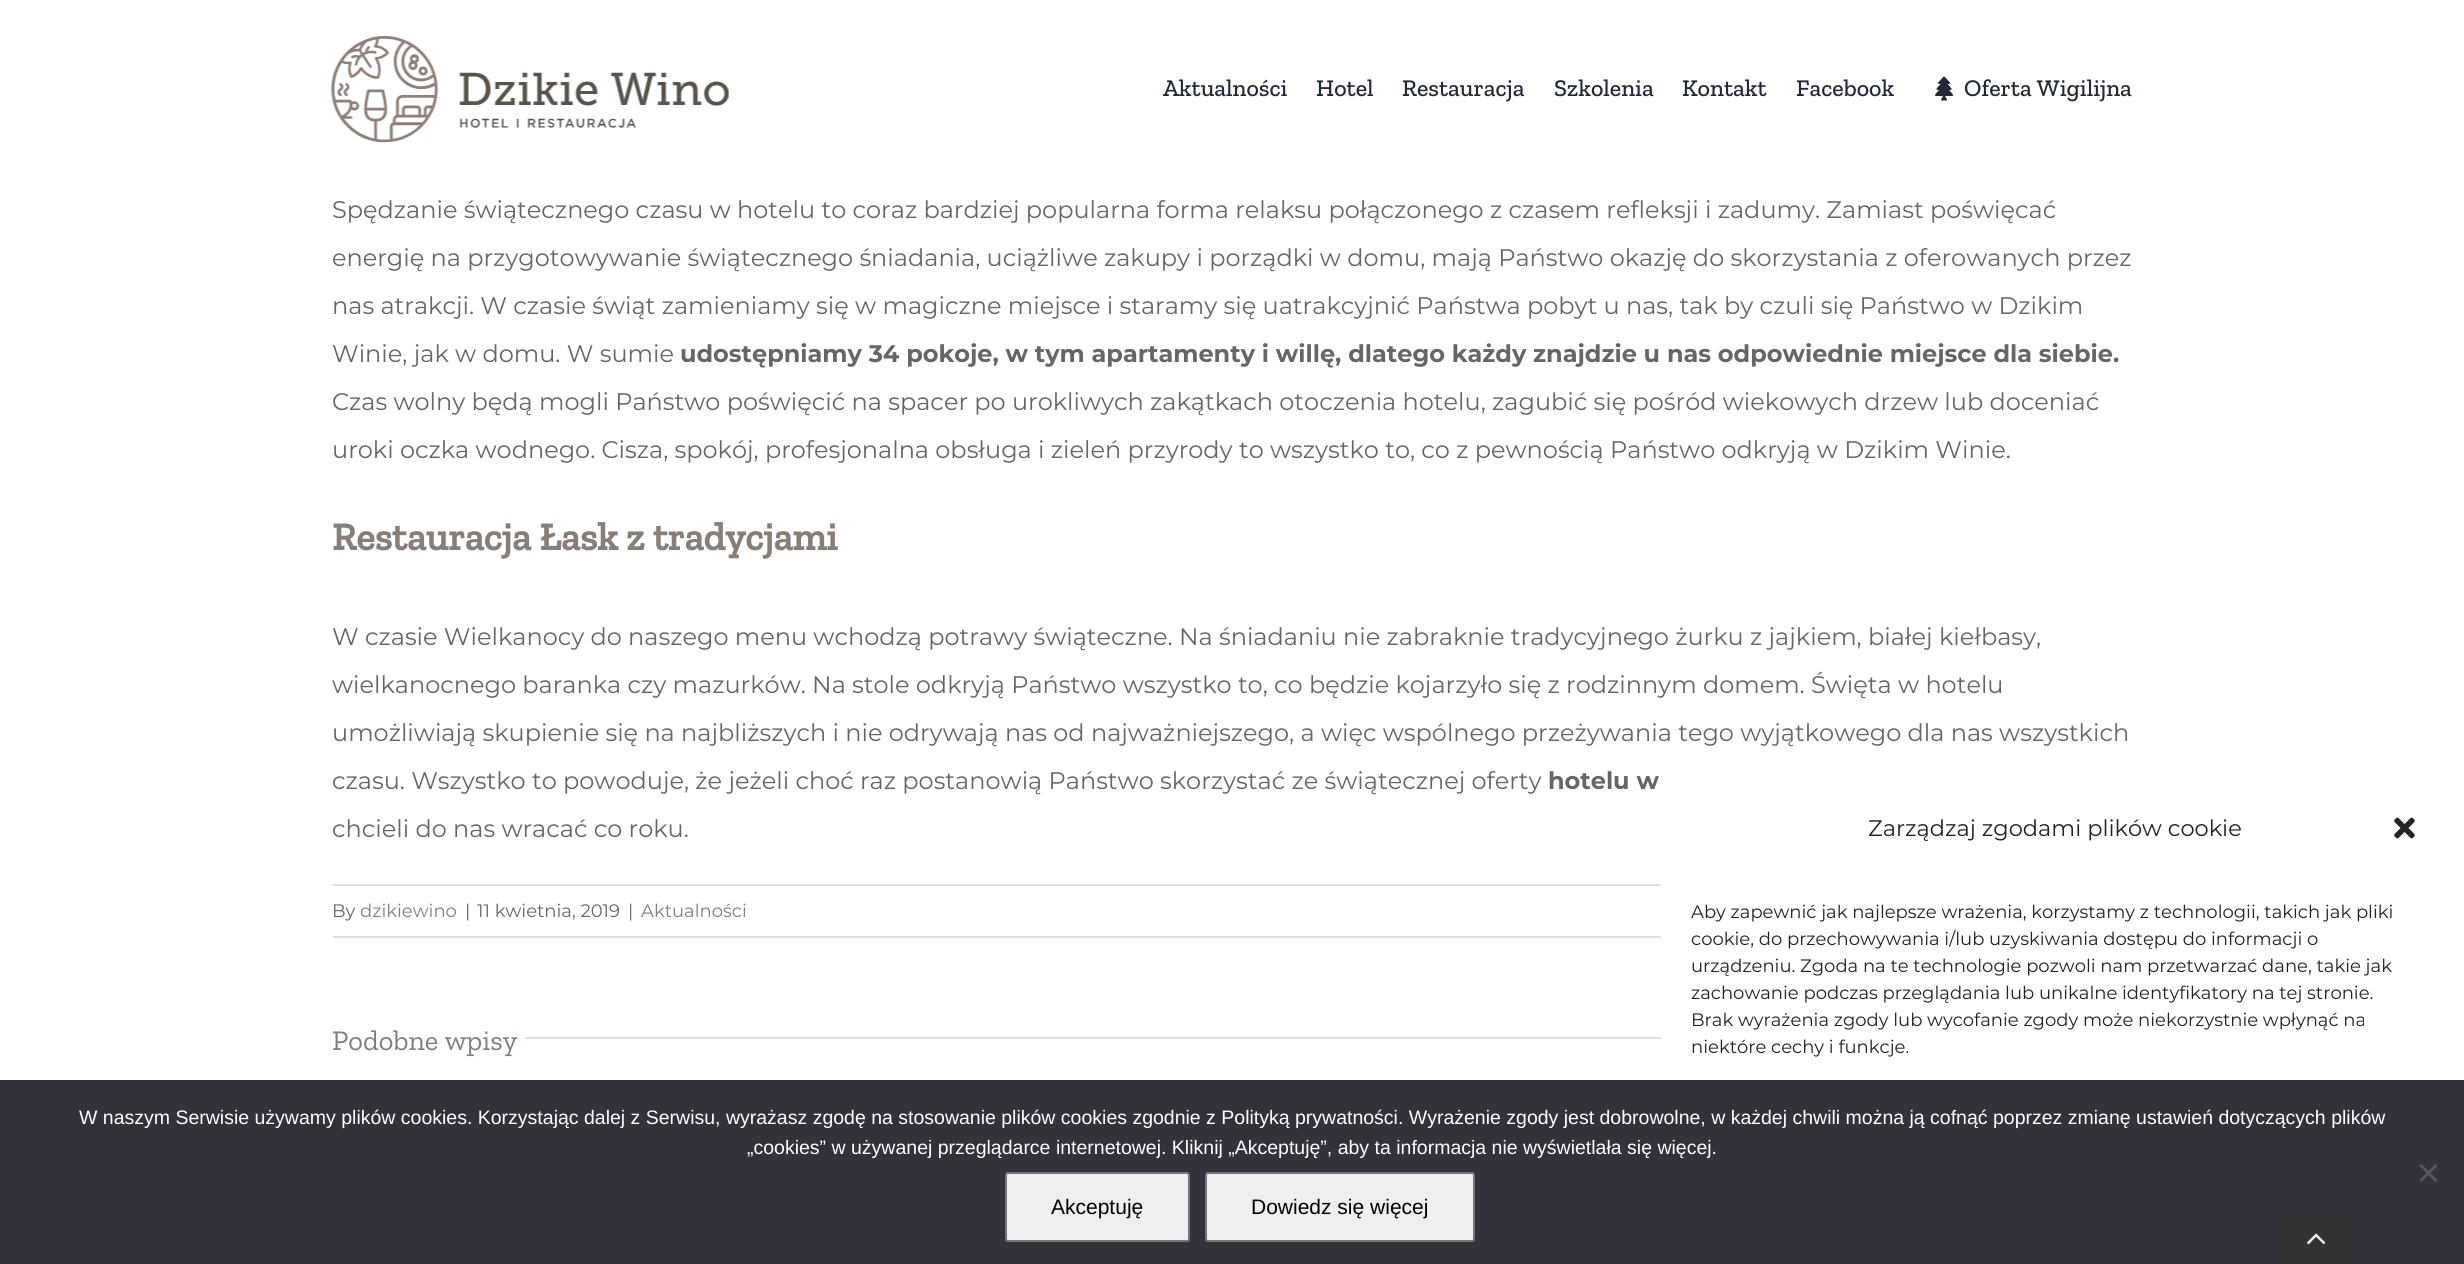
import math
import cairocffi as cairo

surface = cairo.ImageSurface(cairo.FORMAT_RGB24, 2464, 1264)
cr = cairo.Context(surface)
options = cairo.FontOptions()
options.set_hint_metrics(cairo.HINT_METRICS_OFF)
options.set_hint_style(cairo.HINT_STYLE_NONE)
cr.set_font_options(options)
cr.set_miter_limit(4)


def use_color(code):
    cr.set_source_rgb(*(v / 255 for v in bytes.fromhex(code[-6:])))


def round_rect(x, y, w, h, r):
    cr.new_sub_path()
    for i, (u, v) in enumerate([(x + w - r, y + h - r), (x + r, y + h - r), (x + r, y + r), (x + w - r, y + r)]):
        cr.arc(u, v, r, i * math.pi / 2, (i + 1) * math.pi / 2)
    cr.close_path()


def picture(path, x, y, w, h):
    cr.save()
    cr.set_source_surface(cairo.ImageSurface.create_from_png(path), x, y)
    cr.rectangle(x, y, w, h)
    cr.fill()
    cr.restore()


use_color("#ffffff")
cr.paint()
picture("img1.png", 331, 36, 398, 107)
cr.select_font_face("Zilla Slab Medium")
cr.set_font_size(24)
use_color("#212934")
cr.move_to(1163, 96)
cr.show_text("Aktualności")
cr.move_to(1316, 96)
cr.show_text("Hotel")
cr.move_to(1402, 96)
cr.show_text("Restauracja")
cr.move_to(1554, 96)
cr.show_text("Szkolenia")
cr.move_to(1682, 96)
cr.show_text("Kontakt")
cr.move_to(1796, 96)
cr.show_text("Facebook")
picture("img2.png", 1935, 76, 18, 25)
cr.move_to(1964, 96)
cr.show_text("Oferta Wigilijna")
cr.select_font_face("Montserrat")
use_color("#666666")
cr.move_to(332, 218)
cr.show_text("Spędzanie świątecznego czasu w hotelu to coraz bardziej popularna forma relaksu połączonego z czasem refleksji i zadumy. Zamiast poświęcać")
cr.move_to(332, 266)
cr.show_text("energię na przygotowywanie świątecznego śniadania, uciążliwe zakupy i porządki w domu, mają Państwo okazję do skorzystania z oferowanych przez")
cr.move_to(332, 314)
cr.show_text("nas atrakcji. W czasie świąt zamieniamy się w magiczne miejsce i staramy się uatrakcyjnić Państwa pobyt u nas, tak by czuli się Państwo w Dzikim")
cr.move_to(332, 362)
cr.show_text("Winie, jak w domu. W sumie")
cr.select_font_face("Montserrat", cairo.FONT_SLANT_NORMAL, cairo.FONT_WEIGHT_BOLD)
cr.move_to(680, 362)
cr.show_text("udostępniamy 34 pokoje, w tym apartamenty i willę, dlatego każdy znajdzie u nas odpowiednie miejsce dla siebie.")
cr.select_font_face("Montserrat")
cr.move_to(332, 410)
cr.show_text("Czas wolny będą mogli Państwo poświęcić na spacer po urokliwych zakątkach otoczenia hotelu, zagubić się pośród wiekowych drzew lub doceniać")
cr.move_to(332, 458)
cr.show_text("uroki oczka wodnego. Cisza, spokój, profesjonalna obsługa i zieleń przyrody to wszystko to, co z pewnością Państwo odkryją w Dzikim Winie.")
cr.select_font_face("Zilla Slab", cairo.FONT_SLANT_NORMAL, cairo.FONT_WEIGHT_BOLD)
cr.set_font_size(39)
use_color("#887e78")
cr.move_to(332, 550)
cr.show_text("Restauracja Łask z tradycjami")
cr.select_font_face("Montserrat")
cr.set_font_size(24)
use_color("#666666")
cr.move_to(332, 645)
cr.show_text("W czasie Wielkanocy do naszego menu wchodzą potrawy świąteczne. Na śniadaniu nie zabraknie tradycyjnego żurku z jajkiem, białej kiełbasy,")
cr.move_to(332, 693)
cr.show_text("wielkanocnego baranka czy mazurków. Na stole odkryją Państwo wszystko to, co będzie kojarzyło się z rodzinnym domem. Święta w hotelu")
cr.move_to(332, 741)
cr.show_text("umożliwiają skupienie się na najbliższych i nie odrywają nas od najważniejszego, a więc wspólnego przeżywania tego wyjątkowego dla nas wszystkich")
cr.move_to(332, 789)
cr.show_text("czasu. Wszystko to powoduje, że jeżeli choć raz postanowią Państwo skorzystać ze świątecznej oferty")
cr.select_font_face("Montserrat", cairo.FONT_SLANT_NORMAL, cairo.FONT_WEIGHT_BOLD)
cr.move_to(1548, 789)
cr.show_text("hotelu w")
cr.select_font_face("Montserrat")
cr.move_to(332, 837)
cr.show_text("chcieli do nas wracać co roku.")
use_color("#e0dede")
cr.rectangle(333, 884, 1328, 2)
cr.fill()
cr.rectangle(333, 936, 1328, 2)
cr.fill()
cr.set_font_size(18)
use_color("#666666")
cr.move_to(332, 917)
cr.show_text("By")
use_color("#887e78")
cr.move_to(360, 917)
cr.show_text("dzikiewino")
use_color("#666666")
cr.move_to(465, 917)
cr.show_text("|")
cr.move_to(477, 917)
cr.show_text("11 kwietnia, 2019")
cr.move_to(628, 917)
cr.show_text("|")
use_color("#887e78")
cr.move_to(641, 917)
cr.show_text("Aktualności")
cr.select_font_face("Zilla Slab")
cr.set_font_size(28.5)
cr.move_to(332, 1050)
cr.show_text("Podobne wpisy")
use_color("#e0dede")
cr.rectangle(525, 1037, 1136, 2)
cr.fill()
cr.select_font_face("Montserrat")
cr.set_font_size(22.5)
use_color("#222222")
cr.move_to(1868, 836)
cr.show_text("Zarządzaj zgodami plików cookie")
picture("img3.png", 2394, 817, 21, 22)
cr.set_font_size(18)
cr.move_to(1691, 918)
cr.show_text("Aby zapewnić jak najlepsze wrażenia, korzystamy z technologii, takich jak pliki")
cr.move_to(1691, 945)
cr.show_text("cookie, do przechowywania i/lub uzyskiwania dostępu do informacji o")
cr.move_to(1691, 972)
cr.show_text("urządzeniu. Zgoda na te technologie pozwoli nam przetwarzać dane, takie jak")
cr.move_to(1691, 999)
cr.show_text("zachowanie podczas przeglądania lub unikalne identyfikatory na tej stronie.")
cr.move_to(1691, 1026)
cr.show_text("Brak wyrażenia zgody lub wycofanie zgody może niekorzystnie wpłynąć na")
cr.move_to(1691, 1053)
cr.show_text("niektóre cechy i funkcje.")
use_color("#32323a")
cr.rectangle(0, 1080, 2464, 184)
cr.fill()
cr.select_font_face("Liberation Sans")
cr.set_font_size(19.5)
use_color("#ffffff")
cr.move_to(79, 1124)
cr.show_text("W naszym Serwisie używamy plików cookies. Korzystając dalej z Serwisu, wyrażasz zgodę na stosowanie plików cookies zgodnie z Polityką prywatności. Wyrażenie zgody jest dobrowolne, w każdej chwili można ją cofnąć poprzez zmianę ustawień dotyczących plików")
cr.move_to(747, 1154)
cr.show_text("„cookies” w używanej przeglądarce internetowej. Kliknij „Akceptuję”, aby ta informacja nie wyświetlała się więcej.")
use_color("#59595d")
cr.new_path()
cr.move_to(2435.5, 1164)
cr.line_to(2437.5, 1166)
cr.line_to(2421.5, 1182)
cr.line_to(2419.5, 1180)
cr.close_path()
cr.fill()
cr.new_path()
cr.move_to(2419.5, 1166)
cr.line_to(2421.5, 1164)
cr.line_to(2437.5, 1180)
cr.line_to(2435.5, 1182)
cr.close_path()
cr.fill()
use_color("#efefef")
round_rect(1006, 1173, 183, 68, 2)
cr.fill_preserve()
use_color("#767676")
cr.stroke()
cr.set_font_size(21)
use_color("#000000")
cr.move_to(1051, 1214)
cr.show_text("Akceptuję")
use_color("#efefef")
round_rect(1206, 1173, 268, 68, 2)
cr.fill_preserve()
use_color("#767676")
cr.stroke()
use_color("#000000")
cr.move_to(1251, 1214)
cr.show_text("Dowiedz się więcej")
use_color("#333334")
cr.new_path()
cr.move_to(2289, 1212)
cr.line_to(2343, 1212)
cr.curve_to(2348, 1212, 2352, 1216, 2352, 1221)
cr.line_to(2352, 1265)
cr.line_to(2280, 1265)
cr.line_to(2280, 1221)
cr.curve_to(2280, 1216, 2284, 1212, 2289, 1212)
cr.close_path()
cr.fill()
picture("img4.png", 2307, 1233, 19, 12)
surface.write_to_png("result.png")
